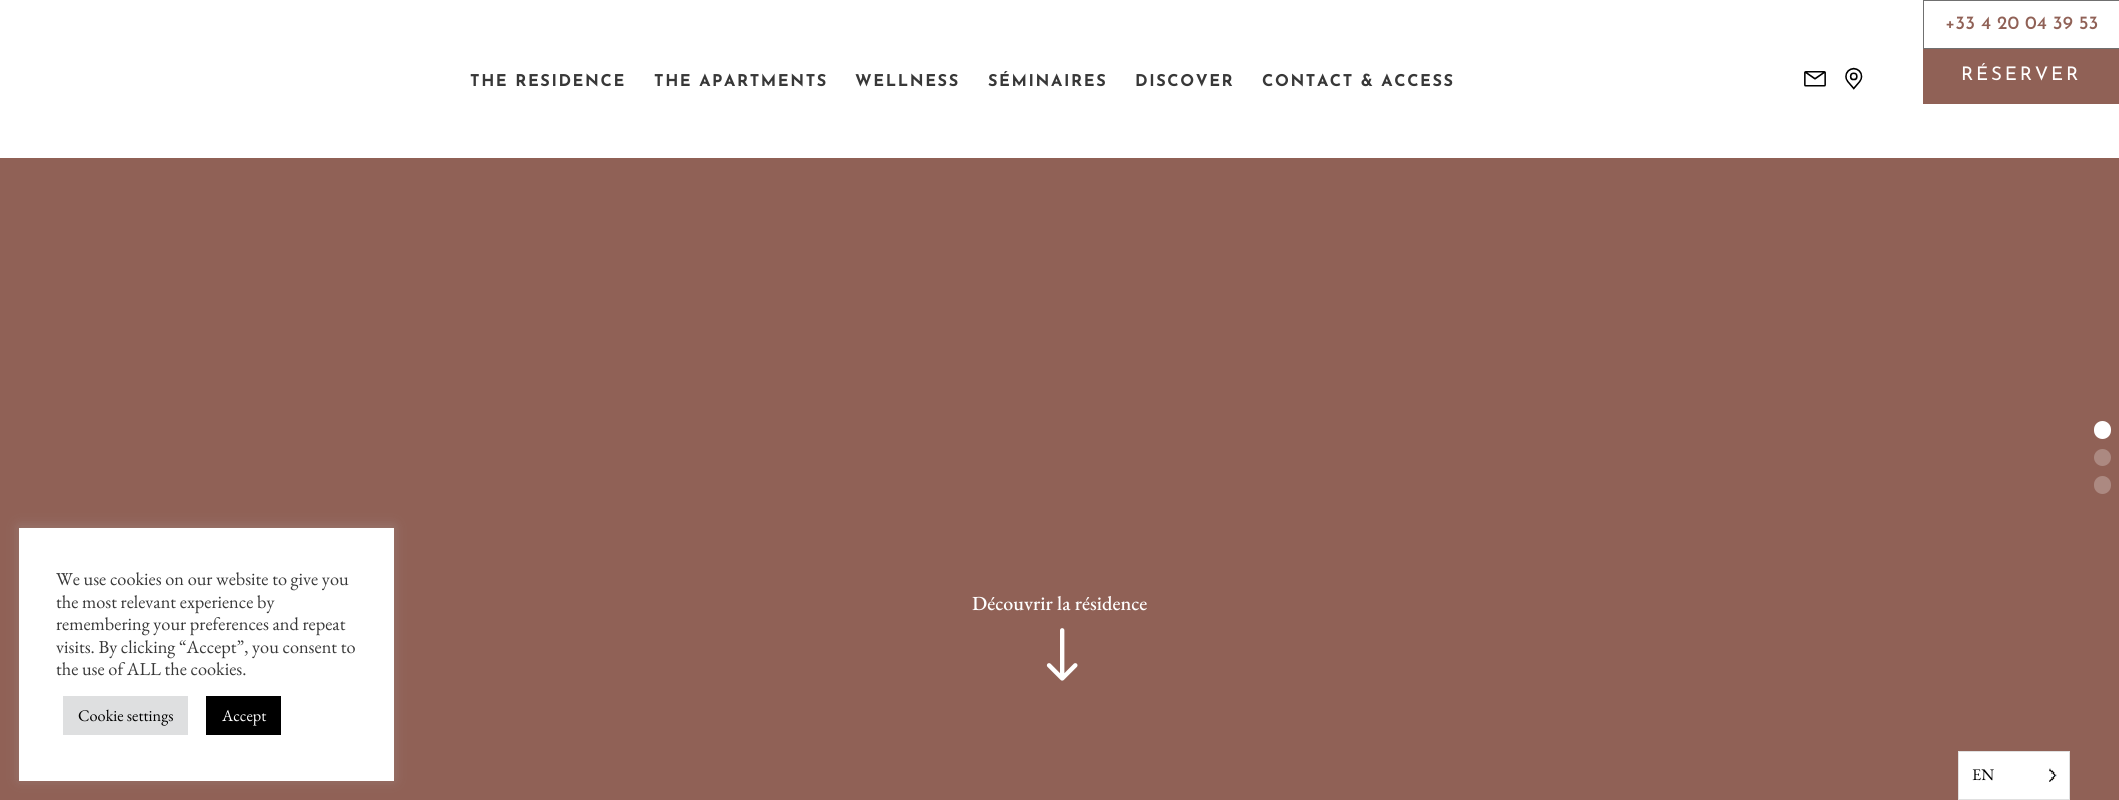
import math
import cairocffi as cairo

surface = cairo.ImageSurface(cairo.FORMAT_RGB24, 2119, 800)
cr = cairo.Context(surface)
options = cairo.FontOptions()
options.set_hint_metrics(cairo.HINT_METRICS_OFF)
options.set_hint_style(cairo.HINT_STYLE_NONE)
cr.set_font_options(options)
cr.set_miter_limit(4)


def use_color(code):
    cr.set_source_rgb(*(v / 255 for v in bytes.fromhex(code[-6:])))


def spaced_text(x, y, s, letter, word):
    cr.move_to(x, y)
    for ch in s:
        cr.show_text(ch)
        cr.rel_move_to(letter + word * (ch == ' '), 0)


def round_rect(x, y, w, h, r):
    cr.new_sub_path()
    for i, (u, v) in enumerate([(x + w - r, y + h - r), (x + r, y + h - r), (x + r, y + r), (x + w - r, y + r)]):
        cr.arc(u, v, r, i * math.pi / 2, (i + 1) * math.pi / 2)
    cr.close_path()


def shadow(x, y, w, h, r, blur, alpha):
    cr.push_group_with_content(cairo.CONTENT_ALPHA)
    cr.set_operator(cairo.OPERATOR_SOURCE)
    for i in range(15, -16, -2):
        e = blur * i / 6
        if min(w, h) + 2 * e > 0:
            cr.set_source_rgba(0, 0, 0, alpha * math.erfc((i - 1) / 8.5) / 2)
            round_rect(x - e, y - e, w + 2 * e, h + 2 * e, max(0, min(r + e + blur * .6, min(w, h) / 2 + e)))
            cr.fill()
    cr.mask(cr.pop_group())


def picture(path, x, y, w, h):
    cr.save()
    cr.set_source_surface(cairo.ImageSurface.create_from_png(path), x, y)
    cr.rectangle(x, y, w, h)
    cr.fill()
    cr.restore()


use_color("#ffffff")
cr.paint()
cr.select_font_face("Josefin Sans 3 Thin")
cr.set_font_size(16.25)
use_color("#383838")
spaced_text(470, 86, "THE RESIDENCE", 1.6, 0)
spaced_text(654, 86, "THE APARTMENTS", 1.6, 0)
spaced_text(855, 86, "WELLNESS", 1.6, 0)
spaced_text(988, 86, "SÉMINAIRES", 1.6, 0)
spaced_text(1135, 86, "DISCOVER", 1.6, 0)
spaced_text(1262, 86, "CONTACT & ACCESS", 1.6, 0)
picture("img1.png", 1804, 71, 22, 16)
picture("img2.png", 1845, 67, 18, 23)
cr.rectangle(1923.5, 0.5, 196, 48)
use_color("#707070")
cr.set_line_width(1)
cr.stroke()
cr.select_font_face("Josefin Sans Thin")
cr.set_font_size(18.75)
use_color("#906156")
cr.move_to(1945, 29)
cr.show_text("+33 4 20 04 39 53")
cr.rectangle(1923, 49, 196, 55)
cr.fill()
cr.select_font_face("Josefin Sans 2 Thin")
use_color("#ffffff")
spaced_text(1961, 80, "RÉSERVER", 2.75, 0)
use_color("#906156")
cr.rectangle(0, 158, 2119, 642)
cr.fill()
use_color("#ffffff")
round_rect(2094, 421, 17, 18, 8.5)
cr.fill()
use_color("#ac8981")
cr.arc(2102.5, 457.5, 8.5, 0, 2 * math.pi)
cr.fill()
round_rect(2094, 476, 17, 18, 8.5)
cr.fill()
cr.select_font_face("EB Garamond Medium")
cr.set_font_size(20)
use_color("#ffffff")
cr.move_to(972, 610)
cr.show_text("Découvrir la résidence")
picture("img3.png", 1046, 628, 32, 53)
use_color("#acabab")
shadow(19, 526, 375, 254, 0, 6, 0.3)
use_color("#ffffff")
cr.rectangle(19, 528, 375, 253)
cr.fill()
cr.select_font_face("EB Garamond")
cr.set_font_size(18.3)
use_color("#383838")
cr.move_to(56, 585)
cr.show_text("We use cookies on our website to give you")
cr.move_to(56, 608)
cr.show_text("the most relevant experience by")
cr.move_to(56, 630)
cr.show_text("remembering your preferences and repeat")
cr.move_to(56, 653)
cr.show_text("visits. By clicking “Accept”, you consent to")
cr.move_to(56, 675)
cr.show_text("the use of ALL the cookies.")
use_color("#dedfe0")
cr.rectangle(63, 696, 125, 39)
cr.fill()
cr.set_font_size(16.25)
use_color("#000000")
cr.move_to(78, 721)
cr.show_text("Cookie settings")
cr.rectangle(206, 696, 75, 39)
cr.fill()
use_color("#ffffff")
cr.move_to(222, 721)
cr.show_text("Accept")
cr.rectangle(1958.5, 751.5, 111, 48)
cr.fill_preserve()
use_color("#e0e0e0")
cr.stroke()
use_color("#000000")
cr.move_to(1972, 780)
cr.show_text("EN")
picture("img4.png", 2049, 768, 8, 14)
surface.write_to_png("result.png")
